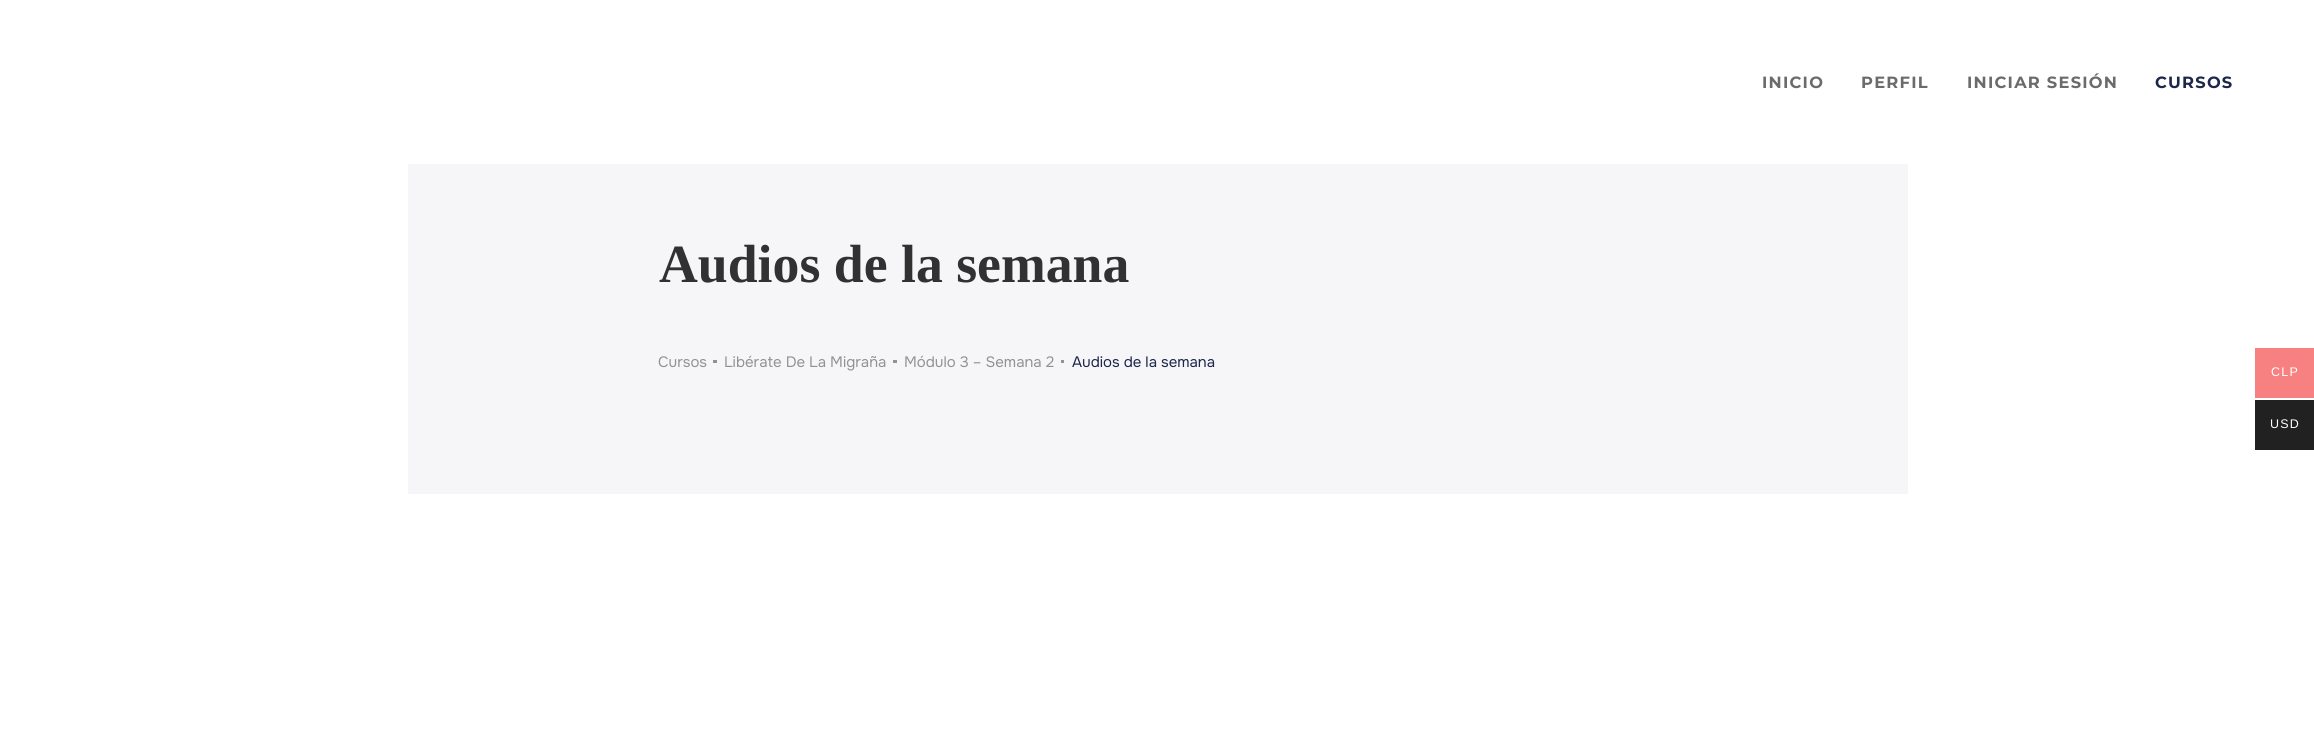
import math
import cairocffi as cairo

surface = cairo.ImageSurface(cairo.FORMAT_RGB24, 2314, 731)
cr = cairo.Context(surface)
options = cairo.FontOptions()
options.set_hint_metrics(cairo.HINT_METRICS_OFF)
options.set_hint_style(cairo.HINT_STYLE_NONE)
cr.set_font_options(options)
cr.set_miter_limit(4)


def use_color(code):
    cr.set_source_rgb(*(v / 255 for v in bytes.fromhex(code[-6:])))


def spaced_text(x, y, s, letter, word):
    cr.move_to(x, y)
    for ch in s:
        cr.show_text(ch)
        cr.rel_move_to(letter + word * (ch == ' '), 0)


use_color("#ffffff")
cr.paint()
cr.select_font_face("Montserrat", cairo.FONT_SLANT_NORMAL, cairo.FONT_WEIGHT_BOLD)
cr.set_font_size(16.25)
use_color("#6a6b6c")
spaced_text(1762, 88, "INICIO", 1.25, 0)
spaced_text(1861, 88, "PERFIL", 1.25, 0)
spaced_text(1967, 88, "INICIAR SESIÓN", 1.25, 0)
use_color("#1c274a")
spaced_text(2155, 88, "CURSOS", 1.25, 0)
use_color("#f6f6f9")
cr.rectangle(408, 164, 1500, 330)
cr.fill()
cr.select_font_face("Liberation Serif", cairo.FONT_SLANT_NORMAL, cairo.FONT_WEIGHT_BOLD)
cr.set_font_size(53.75)
use_color("#313132")
cr.move_to(659, 282)
cr.show_text("Audios de la semana")
cr.select_font_face("Onest")
cr.set_font_size(15)
use_color("#939292")
cr.move_to(658, 367)
cr.show_text("Cursos")
cr.rectangle(713, 360, 4, 3)
cr.fill()
cr.move_to(724, 367)
cr.show_text("Libérate De La Migraña")
cr.rectangle(893, 360, 4, 3)
cr.fill()
cr.move_to(904, 367)
cr.show_text("Módulo 3 – Semana 2")
cr.rectangle(1061, 360, 3, 3)
cr.fill()
use_color("#1c274a")
cr.move_to(1072, 367)
cr.show_text("Audios de la semana")
use_color("#f78080")
cr.rectangle(2255, 348, 59, 50)
cr.fill()
cr.select_font_face("Liberation Sans")
cr.set_font_size(12.5)
use_color("#ffffff")
spaced_text(2271, 376, "CLP", 1.25, 0)
use_color("#212121")
cr.rectangle(2255, 400, 59, 50)
cr.fill()
use_color("#ffffff")
spaced_text(2270, 428, "USD", 1.25, 0)
surface.write_to_png("result.png")
